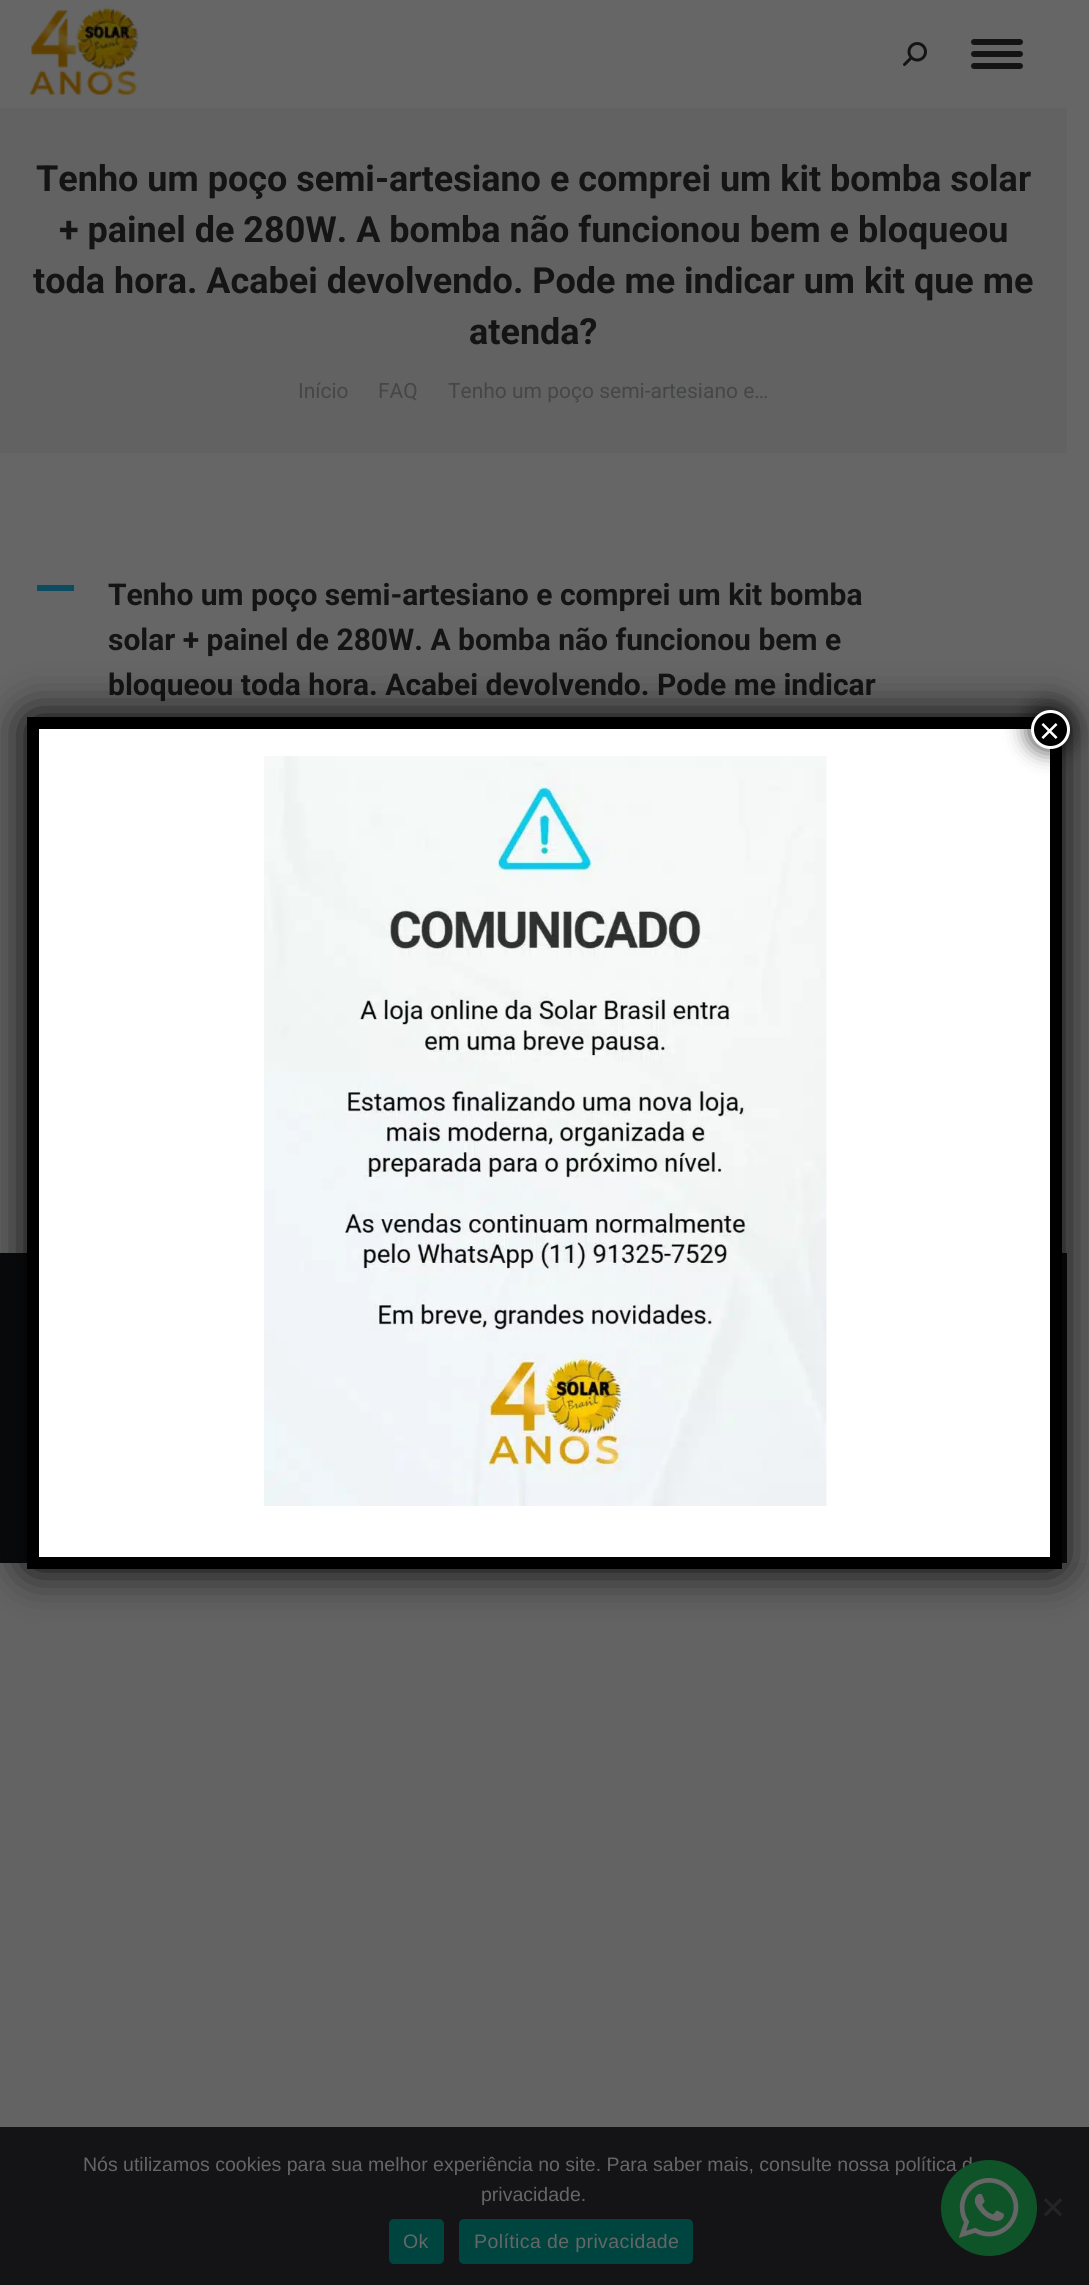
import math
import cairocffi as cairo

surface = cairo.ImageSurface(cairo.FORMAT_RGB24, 1089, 2285)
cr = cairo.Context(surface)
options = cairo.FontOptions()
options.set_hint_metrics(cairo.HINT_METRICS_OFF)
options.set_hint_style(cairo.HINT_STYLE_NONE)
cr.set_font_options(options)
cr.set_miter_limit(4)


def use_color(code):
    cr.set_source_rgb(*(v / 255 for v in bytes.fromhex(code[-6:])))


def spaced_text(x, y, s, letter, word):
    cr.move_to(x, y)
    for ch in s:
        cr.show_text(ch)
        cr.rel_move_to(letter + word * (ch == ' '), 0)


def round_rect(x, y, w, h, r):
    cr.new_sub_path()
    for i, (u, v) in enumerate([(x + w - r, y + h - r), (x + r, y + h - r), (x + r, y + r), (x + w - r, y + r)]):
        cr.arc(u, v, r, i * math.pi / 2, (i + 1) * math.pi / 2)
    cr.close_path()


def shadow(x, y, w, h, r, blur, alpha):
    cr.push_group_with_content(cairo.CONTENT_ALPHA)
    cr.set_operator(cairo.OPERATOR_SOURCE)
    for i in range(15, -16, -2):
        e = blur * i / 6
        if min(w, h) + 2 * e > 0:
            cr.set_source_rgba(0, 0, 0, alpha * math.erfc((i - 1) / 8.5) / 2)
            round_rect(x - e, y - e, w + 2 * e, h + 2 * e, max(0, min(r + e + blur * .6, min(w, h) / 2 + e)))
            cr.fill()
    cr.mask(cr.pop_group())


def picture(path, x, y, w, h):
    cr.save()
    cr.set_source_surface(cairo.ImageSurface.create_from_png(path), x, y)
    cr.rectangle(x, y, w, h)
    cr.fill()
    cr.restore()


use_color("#636363")
cr.paint()
use_color("#666666")
cr.rectangle(0, 0, 1089, 1563)
cr.fill()
picture("img1.png", 30, 7, 108, 88)
picture("img2.png", 903, 42, 24, 24)
use_color("#141414")
round_rect(971, 39, 52, 6, 3)
cr.fill()
round_rect(971, 51, 52, 6, 3)
cr.fill()
round_rect(971, 63, 52, 6, 3)
cr.fill()
use_color("#626262")
cr.rectangle(0, 108, 1067, 345)
cr.fill()
cr.select_font_face("Roboto", cairo.FONT_SLANT_NORMAL, cairo.FONT_WEIGHT_BOLD)
cr.set_font_size(36)
use_color("#141414")
cr.move_to(36, 191)
cr.show_text("Tenho um poço semi-artesiano e comprei um kit bomba solar")
cr.move_to(59, 242)
cr.show_text("+ painel de 280W. A bomba não funcionou bem e bloqueou")
cr.move_to(33, 293)
cr.show_text("toda hora. Acabei devolvendo. Pode me indicar um kit que me")
cr.move_to(469, 344)
cr.show_text("atenda?")
cr.select_font_face("Roboto")
cr.set_font_size(21)
use_color("#454648")
cr.move_to(298, 398)
cr.show_text("Início")
cr.move_to(378, 398)
cr.show_text("FAQ")
cr.move_to(448, 398)
cr.show_text("Tenho um poço semi-artesiano e…")
use_color("#0c4b60")
cr.rectangle(37, 585, 37, 6)
cr.fill()
cr.select_font_face("Roboto", cairo.FONT_SLANT_NORMAL, cairo.FONT_WEIGHT_BOLD)
cr.set_font_size(30)
use_color("#141414")
cr.move_to(108, 605)
cr.show_text("Tenho um poço semi-artesiano e comprei um kit bomba")
cr.move_to(108, 650)
cr.show_text("solar + painel de 280W. A bomba não funcionou bem e")
cr.move_to(108, 695)
cr.show_text("bloqueou toda hora. Acabei devolvendo. Pode me indicar")
use_color("#0a0b0d")
cr.rectangle(0, 1253, 1067, 310)
cr.fill()
use_color("#020202")
shadow(27, 717, 1035, 852, 5, 22.5, 1)
use_color("#ffffff")
cr.rectangle(39, 729, 1011, 828)
cr.fill()
cr.new_path()
cr.move_to(33, 723)
cr.line_to(1056, 723)
cr.line_to(1056, 1563)
cr.line_to(33, 1563)
cr.close_path()
use_color("#000000")
cr.set_line_width(12)
cr.stroke()
use_color("#020202")
shadow(1029, 708, 42, 42, 21, 11, 0.75)
use_color("#000000")
cr.arc(1050.5, 729.5, 18, 0, 2 * math.pi)
cr.fill_preserve()
use_color("#ffffff")
cr.set_line_width(3)
cr.stroke()
cr.select_font_face("Liberation Sans")
cr.set_font_size(36)
cr.move_to(1039, 743)
cr.show_text("×")
picture("img3.png", 264, 756, 563, 750)
use_color("#141417")
cr.rectangle(0, 2127, 1089, 158)
cr.fill()
cr.set_font_size(19.5)
use_color("#666666")
cr.move_to(83, 2171)
cr.show_text("Nós utilizamos cookies para sua melhor experiência no site. Para saber mais, consulte nossa política d")
cr.move_to(481, 2201)
cr.show_text("privacidade.")
use_color("#242425")
cr.new_path()
cr.move_to(1060, 2198)
cr.line_to(1062, 2200.5)
cr.line_to(1046, 2216.5)
cr.line_to(1044, 2214)
cr.close_path()
cr.fill()
cr.new_path()
cr.move_to(1044, 2200.5)
cr.line_to(1046, 2198)
cr.line_to(1062, 2214)
cr.line_to(1060, 2216.5)
cr.close_path()
cr.fill()
use_color("#00443f")
round_rect(389, 2219, 55, 45, 5)
cr.fill()
use_color("#666666")
spaced_text(403, 2248, "Ok", 0.4, 0)
use_color("#00443f")
round_rect(459, 2219, 234, 45, 5)
cr.fill()
use_color("#666666")
spaced_text(474, 2248, "Política de privacidade", 0.4, 0)
use_color("#0f5429")
cr.new_path()
cr.arc(989, 2208, 48, 0, 2 * math.pi)
cr.fill()
picture("img4.png", 959, 2178, 60, 60)
surface.write_to_png("result.png")
